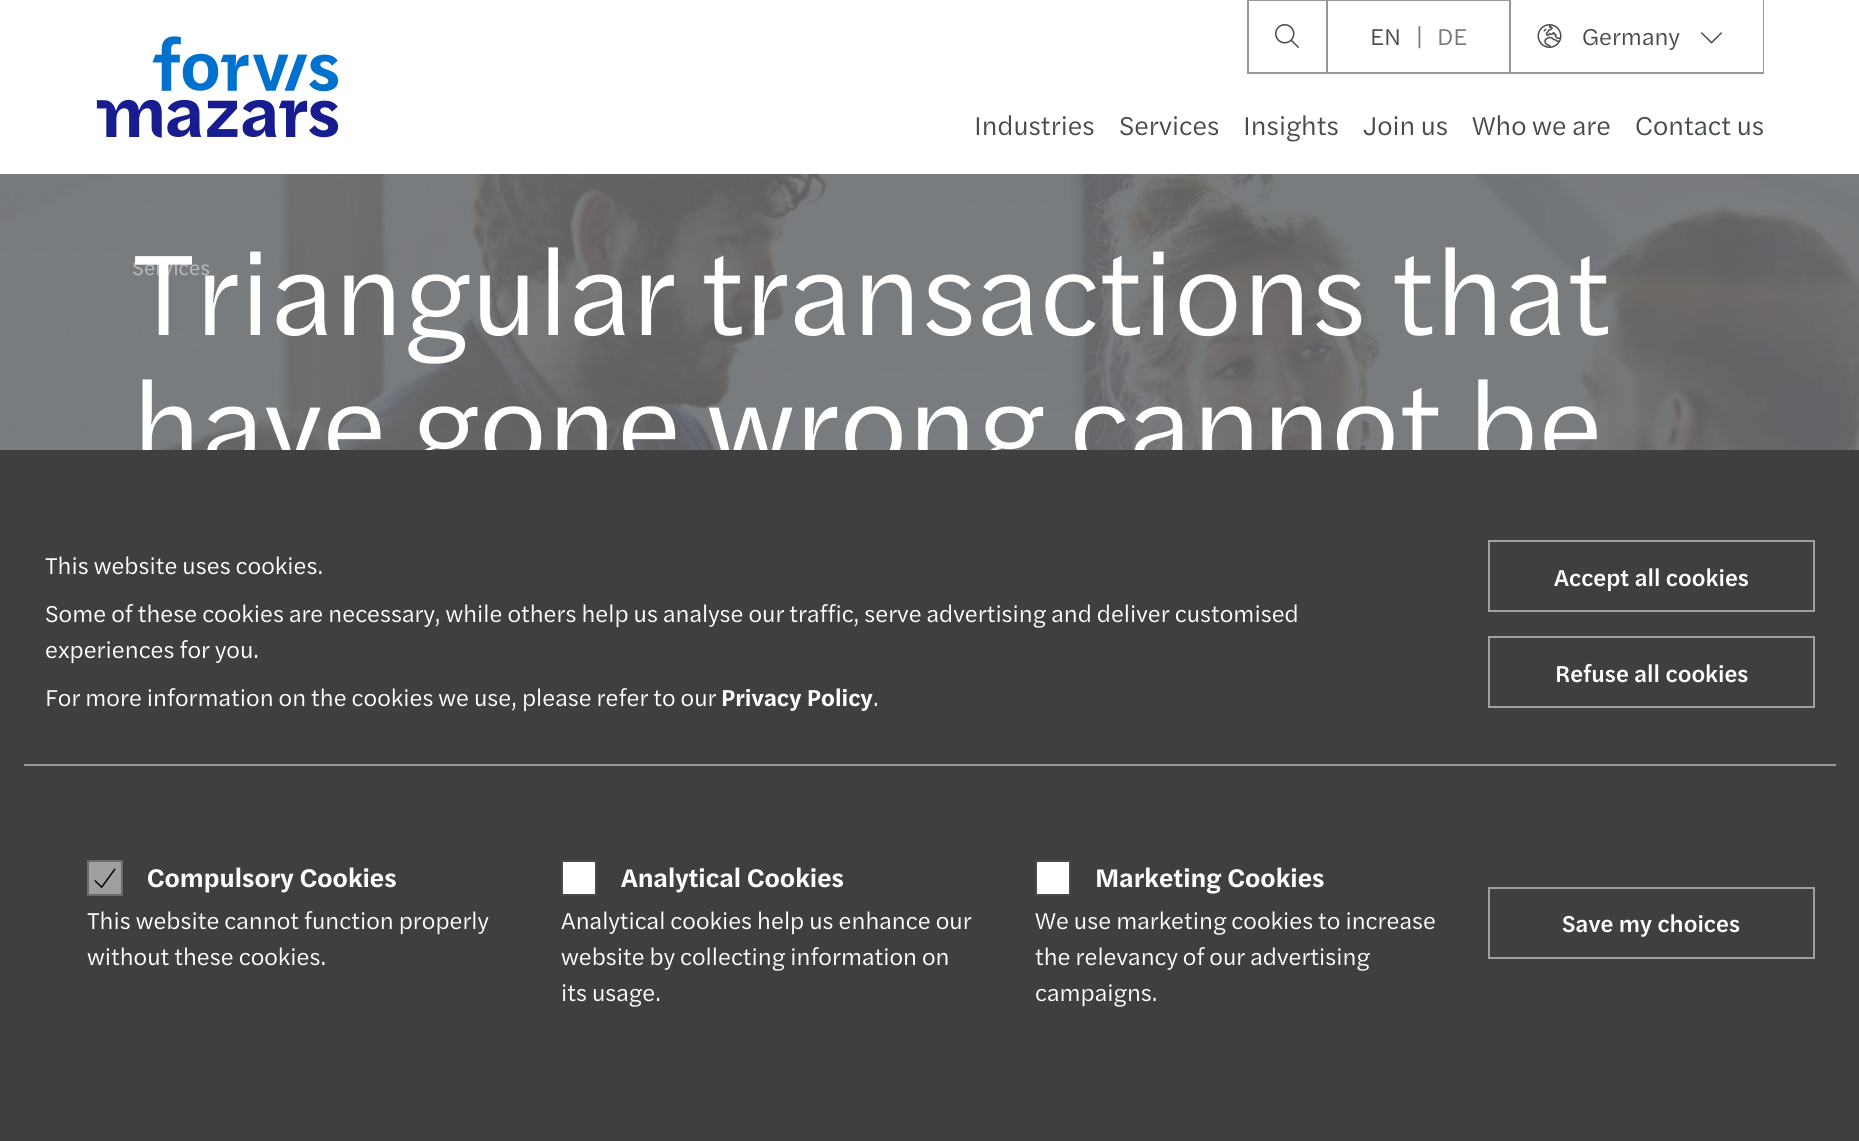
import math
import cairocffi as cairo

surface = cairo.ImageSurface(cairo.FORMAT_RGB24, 1859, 1141)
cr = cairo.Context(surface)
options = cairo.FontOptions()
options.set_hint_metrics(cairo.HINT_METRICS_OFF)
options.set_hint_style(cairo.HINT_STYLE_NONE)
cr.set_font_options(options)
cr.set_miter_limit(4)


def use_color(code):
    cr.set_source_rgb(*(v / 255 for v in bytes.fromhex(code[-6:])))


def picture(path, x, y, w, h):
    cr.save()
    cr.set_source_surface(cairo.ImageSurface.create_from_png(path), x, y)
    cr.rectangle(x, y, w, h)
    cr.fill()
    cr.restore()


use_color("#ffffff")
cr.paint()
picture("img1.png", 96, 36, 243, 102)
cr.rectangle(1248, 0, 79, 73)
use_color("#979797")
cr.stroke()
picture("img2.png", 1275, 24, 24, 24)
cr.rectangle(1328, 0, 181, 1)
cr.fill()
cr.rectangle(1328, 72, 181, 2)
cr.fill()
cr.select_font_face("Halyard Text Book")
cr.set_font_size(24)
use_color("#464b4b")
cr.move_to(1370, 45)
cr.show_text("EN")
use_color("#787878")
cr.move_to(1416, 44)
cr.show_text("|")
cr.move_to(1437, 45)
cr.show_text("DE")
cr.rectangle(1510, 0, 253, 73)
use_color("#979797")
cr.stroke()
use_color("#ffffff")
cr.rectangle(1511, 0, 252, 72)
cr.fill()
picture("img3.png", 1537, 24, 25, 24)
use_color("#464b4b")
cr.move_to(1582, 45)
cr.show_text("Germany")
picture("img4.png", 1701, 32, 21, 12)
cr.set_font_size(27)
cr.move_to(974, 135)
cr.show_text("Industries")
cr.move_to(1119, 135)
cr.show_text("Services")
cr.move_to(1243, 135)
cr.show_text("Insights")
cr.move_to(1363, 135)
cr.show_text("Join us")
cr.move_to(1472, 135)
cr.show_text("Who we are")
cr.move_to(1635, 135)
cr.show_text("Contact us")
picture("img5.png", 0, 174, 1859, 276)
cr.set_font_size(21)
use_color("#bbbcbe")
cr.move_to(132, 275)
cr.show_text("Services")
cr.set_font_size(120)
use_color("#ffffff")
cr.move_to(132, 335)
cr.show_text("Triangular transactions that")
cr.move_to(132, 467)
cr.show_text("have gone wrong cannot be")
use_color("#3f3f3f")
cr.rectangle(0, 450, 1859, 691)
cr.fill()
cr.set_font_size(24)
use_color("#ffffff")
cr.move_to(45, 574)
cr.show_text("This website uses cookies.")
cr.move_to(45, 622)
cr.show_text("Some of these cookies are necessary, while others help us analyse our traffic, serve advertising and deliver customised")
cr.move_to(45, 658)
cr.show_text("experiences for you.")
cr.move_to(45, 706)
cr.show_text("For more information on the cookies we use, please refer to our")
cr.select_font_face("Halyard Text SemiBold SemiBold")
cr.move_to(721, 706)
cr.show_text("Privacy Policy")
cr.select_font_face("Halyard Text Book")
cr.move_to(873, 706)
cr.show_text(".")
cr.rectangle(1489, 541, 325, 70)
use_color("#9f9f9f")
cr.stroke()
cr.select_font_face("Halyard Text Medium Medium")
use_color("#ffffff")
cr.move_to(1554, 586)
cr.show_text("Accept all cookies")
cr.rectangle(1489, 637, 325, 70)
use_color("#9f9f9f")
cr.stroke()
use_color("#ffffff")
cr.move_to(1555, 682)
cr.show_text("Refuse all cookies")
use_color("#979797")
cr.rectangle(24, 764, 1812, 2)
cr.fill()
use_color("#9f9f9f")
cr.rectangle(88, 861, 34, 34)
cr.fill_preserve()
use_color("#6b6b6b")
cr.stroke()
cr.select_font_face("Halyard Text SemiBold SemiBold")
cr.set_font_size(26.5)
use_color("#ffffff")
cr.move_to(147, 887)
cr.show_text("Compulsory Cookies")
picture("img6.png", 94, 868, 22, 20)
cr.select_font_face("Halyard Text Book")
cr.set_font_size(24)
cr.move_to(87, 929)
cr.show_text("This website cannot function properly")
cr.move_to(87, 965)
cr.show_text("without these cookies.")
cr.rectangle(562, 861, 34, 34)
cr.fill_preserve()
use_color("#464b4b")
cr.stroke()
cr.select_font_face("Halyard Text SemiBold SemiBold")
cr.set_font_size(26.5)
use_color("#ffffff")
cr.move_to(621, 887)
cr.show_text("Analytical Cookies")
cr.select_font_face("Halyard Text Book")
cr.set_font_size(24)
cr.move_to(561, 929)
cr.show_text("Analytical cookies help us enhance our")
cr.move_to(561, 965)
cr.show_text("website by collecting information on")
cr.move_to(561, 1001)
cr.show_text("its usage.")
cr.rectangle(1036, 861, 34, 34)
cr.fill_preserve()
use_color("#464b4b")
cr.stroke()
cr.select_font_face("Halyard Text SemiBold SemiBold")
cr.set_font_size(26.5)
use_color("#ffffff")
cr.move_to(1095, 887)
cr.show_text("Marketing Cookies")
cr.select_font_face("Halyard Text Book")
cr.set_font_size(24)
cr.move_to(1035, 929)
cr.show_text("We use marketing cookies to increase")
cr.move_to(1035, 965)
cr.show_text("the relevancy of our advertising")
cr.move_to(1035, 1001)
cr.show_text("campaigns.")
cr.rectangle(1489, 888, 325, 70)
use_color("#9f9f9f")
cr.stroke()
cr.select_font_face("Halyard Text Medium Medium")
use_color("#ffffff")
cr.move_to(1562, 932)
cr.show_text("Save my choices")
surface.write_to_png("result.png")
